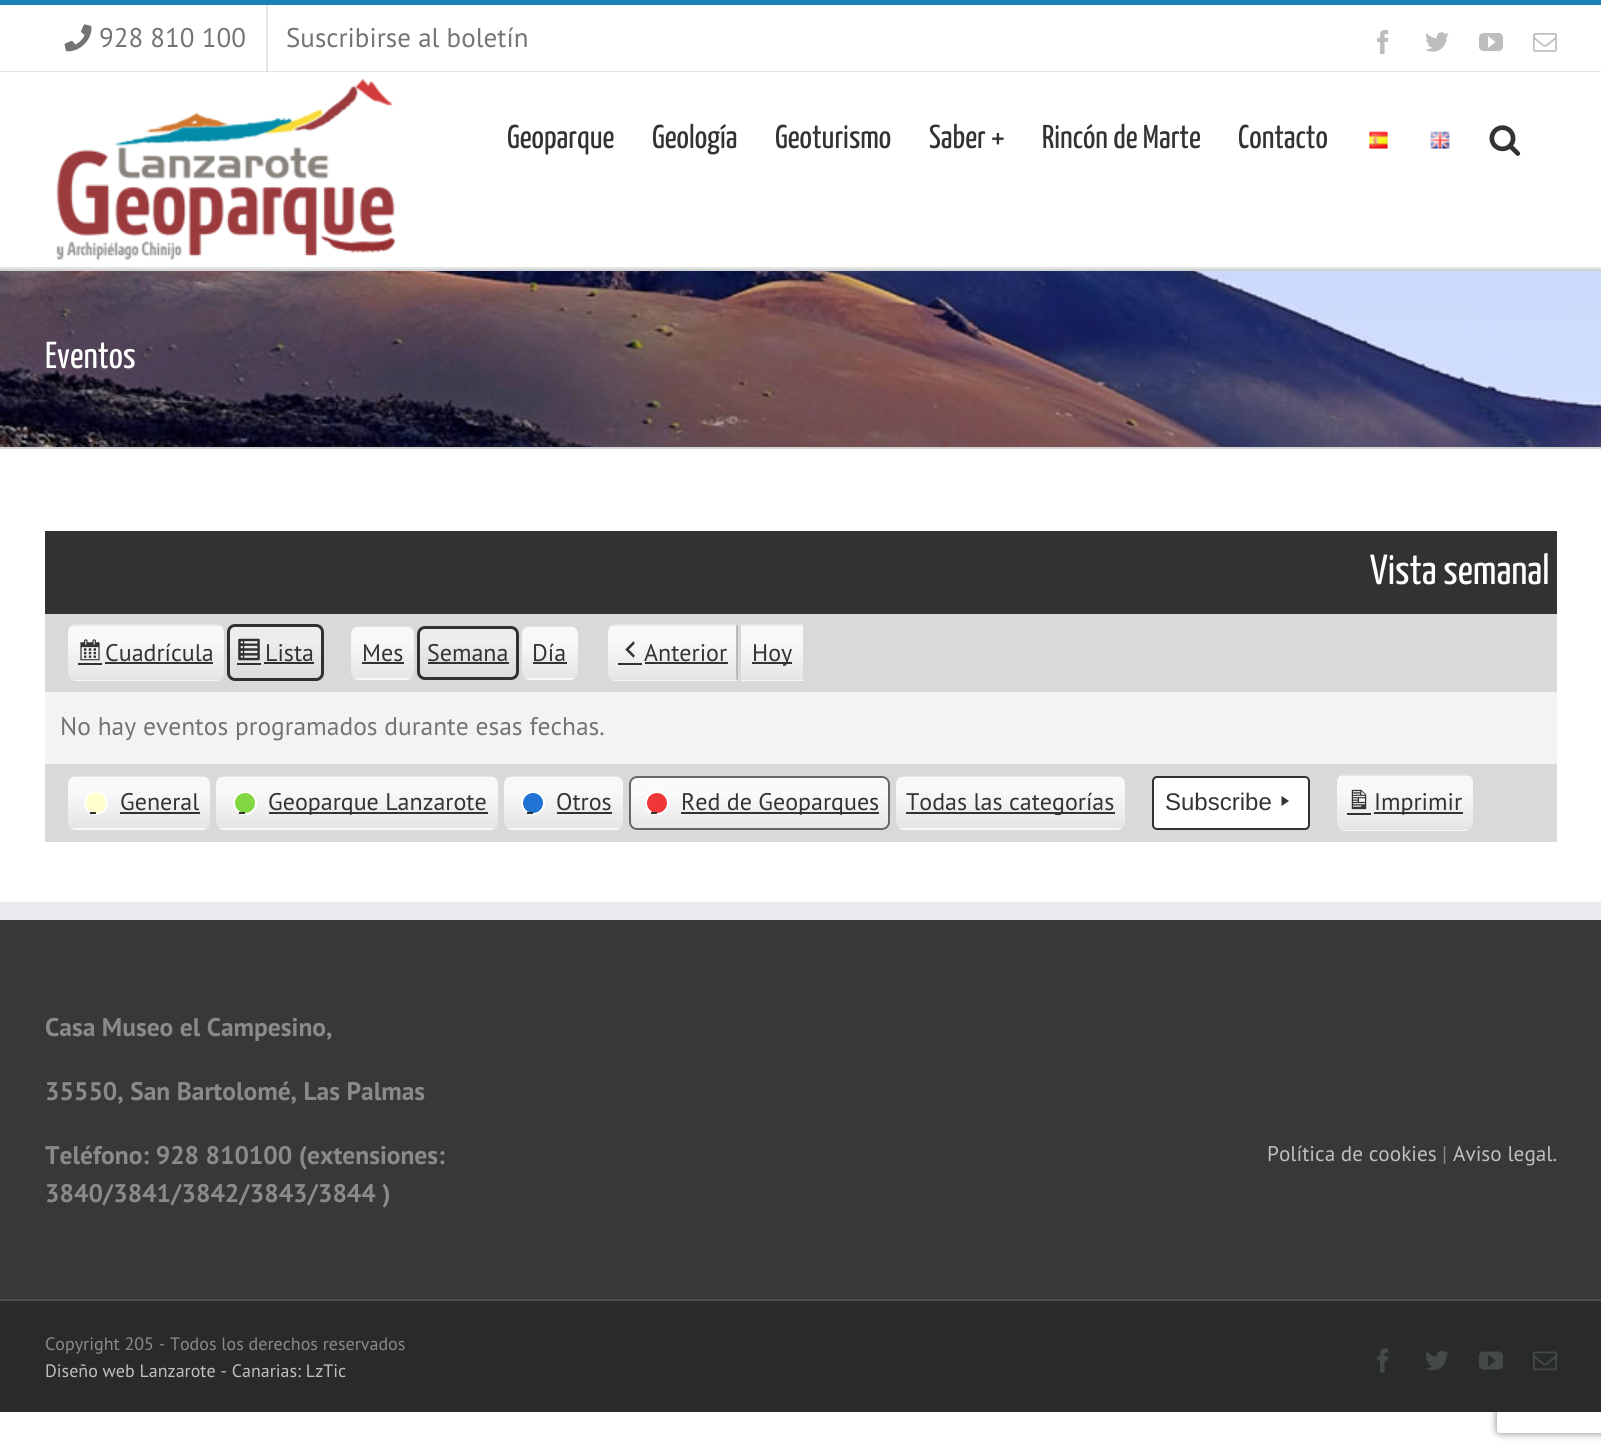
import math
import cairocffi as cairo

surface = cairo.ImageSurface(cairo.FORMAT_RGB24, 1601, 1453)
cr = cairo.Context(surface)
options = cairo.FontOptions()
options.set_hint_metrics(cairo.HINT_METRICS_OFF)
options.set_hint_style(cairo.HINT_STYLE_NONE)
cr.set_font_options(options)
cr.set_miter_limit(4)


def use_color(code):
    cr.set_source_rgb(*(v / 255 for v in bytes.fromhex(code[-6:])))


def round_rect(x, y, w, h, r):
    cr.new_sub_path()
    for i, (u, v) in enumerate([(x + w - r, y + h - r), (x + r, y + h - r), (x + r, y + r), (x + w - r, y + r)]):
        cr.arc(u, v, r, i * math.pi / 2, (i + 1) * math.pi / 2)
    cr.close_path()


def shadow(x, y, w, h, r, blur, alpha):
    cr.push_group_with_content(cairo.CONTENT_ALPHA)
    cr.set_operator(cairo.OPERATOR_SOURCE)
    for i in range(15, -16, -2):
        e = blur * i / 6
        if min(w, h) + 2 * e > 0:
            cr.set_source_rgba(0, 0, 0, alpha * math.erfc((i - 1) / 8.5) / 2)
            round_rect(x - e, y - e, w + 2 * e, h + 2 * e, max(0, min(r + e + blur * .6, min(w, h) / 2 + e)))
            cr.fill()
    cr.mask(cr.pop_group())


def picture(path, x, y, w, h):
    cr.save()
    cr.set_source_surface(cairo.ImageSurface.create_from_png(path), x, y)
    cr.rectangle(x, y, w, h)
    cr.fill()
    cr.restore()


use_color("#ffffff")
cr.paint()
use_color("#1a80b6")
cr.rectangle(0, 0, 1601, 5)
cr.fill()
use_color("#e5e5e5")
cr.rectangle(0, 71, 1601, 1)
cr.fill()
picture("img1.png", 64, 24, 28, 28)
cr.select_font_face("PT Sans")
cr.set_font_size(27)
use_color("#747474")
cr.move_to(99, 47)
cr.show_text("928 810 100")
use_color("#e5e5e5")
cr.rectangle(266, 5, 2, 66)
cr.fill()
use_color("#747474")
cr.move_to(286, 47)
cr.show_text("Suscribirse al boletín")
picture("img2.png", 1377, 30, 12, 24)
picture("img3.png", 1425, 32, 24, 20)
picture("img4.png", 1479, 33, 24, 18)
picture("img5.png", 1533, 33, 24, 19)
use_color("#e5e5e5")
cr.rectangle(0, 267, 1601, 2)
cr.fill()
picture("img6.png", 56, 79, 339, 181)
cr.select_font_face("Yanone Kaffeesatz ExtraLight")
cr.set_font_size(33)
use_color("#333333")
cr.move_to(507, 148)
cr.show_text("Geoparque")
cr.move_to(652, 148)
cr.show_text("Geología")
cr.move_to(775, 148)
cr.show_text("Geoturismo")
cr.move_to(929, 148)
cr.show_text("Saber +")
cr.move_to(1042, 148)
cr.show_text("Rincón de Marte")
cr.move_to(1238, 148)
cr.show_text("Contacto")
picture("img7.png", 1369, 131, 19, 18)
picture("img8.png", 1430, 131, 20, 18)
picture("img9.png", 1489, 125, 32, 31)
picture("img10.png", 0, 271, 1601, 176)
use_color("#d2d3d4")
cr.rectangle(0, 269, 1601, 2)
cr.fill()
cr.rectangle(0, 447, 1601, 2)
cr.fill()
cr.set_font_size(37.5)
use_color("#ffffff")
cr.move_to(45, 368)
cr.show_text("Eventos")
use_color("#313233")
cr.rectangle(45, 531, 1512, 83)
cr.fill()
cr.set_font_size(42)
use_color("#ffffff")
cr.move_to(1370, 584)
cr.show_text("Vista semanal")
use_color("#d9d9d9")
cr.rectangle(45, 614, 1512, 78)
cr.fill()
cr.save()
round_rect(68, 624, 156, 57, 8)
cr.clip()
gradient = cairo.LinearGradient(146, 626, 146, 572)
gradient.add_color_stop_rgba(0, 0.898, 0.898, 0.898, 1)
gradient.add_color_stop_rgba(0.7, 0.973, 0.973, 0.973, 1)
cr.set_source(gradient)
cr.rectangle(68, 624, 156, 2)
cr.fill()
gradient = cairo.LinearGradient(146, 680, 146, 626)
gradient.add_color_stop_rgba(0, 0.898, 0.898, 0.898, 1)
gradient.add_color_stop_rgba(0.7, 0.973, 0.973, 0.973, 1)
cr.set_source(gradient)
cr.rectangle(68, 626, 156, 54)
cr.fill()
gradient = cairo.LinearGradient(146, 734, 146, 680)
gradient.add_color_stop_rgba(0, 0.898, 0.898, 0.898, 1)
gradient.add_color_stop_rgba(0.7, 0.973, 0.973, 0.973, 1)
cr.set_source(gradient)
cr.rectangle(68, 680, 156, 1)
cr.fill()
cr.restore()
picture("img11.png", 80, 639, 20, 22)
use_color("#333333")
cr.rectangle(78, 663, 24, 2)
cr.fill()
cr.select_font_face("PT Sans")
cr.set_font_size(24)
cr.move_to(105, 661)
cr.show_text("Cuadrícula")
cr.rectangle(105, 662, 108, 2)
cr.fill()
cr.save()
round_rect(227, 624, 97, 57, 8)
cr.clip()
gradient = cairo.LinearGradient(275, 680, 275, 626)
gradient.add_color_stop_rgba(0, 0.859, 0.859, 0.859, 1)
gradient.add_color_stop_rgba(0.7, 0.929, 0.929, 0.929, 1)
cr.set_source(gradient)
cr.rectangle(227, 626, 97, 54)
cr.fill()
cr.restore()
picture("img12.png", 238, 638, 22, 23)
use_color("#303030")
cr.rectangle(237, 663, 24, 2)
cr.fill()
cr.rectangle(264, 662, 50, 2)
cr.fill()
round_rect(228.5, 625.5, 94, 54, 6.5)
cr.set_line_width(3)
cr.stroke()
use_color("#333333")
cr.move_to(265, 661)
cr.show_text("Lista")
cr.save()
round_rect(351, 626, 63, 54, 8)
cr.clip()
gradient = cairo.LinearGradient(383, 627, 383, 576)
gradient.add_color_stop_rgba(0, 0.898, 0.898, 0.898, 1)
gradient.add_color_stop_rgba(0.7, 0.973, 0.973, 0.973, 1)
cr.set_source(gradient)
cr.rectangle(351, 626, 63, 1)
cr.fill()
gradient = cairo.LinearGradient(383, 678, 383, 627)
gradient.add_color_stop_rgba(0, 0.898, 0.898, 0.898, 1)
gradient.add_color_stop_rgba(0.7, 0.973, 0.973, 0.973, 1)
cr.set_source(gradient)
cr.rectangle(351, 627, 63, 51)
cr.fill()
gradient = cairo.LinearGradient(383, 729, 383, 678)
gradient.add_color_stop_rgba(0, 0.898, 0.898, 0.898, 1)
gradient.add_color_stop_rgba(0.7, 0.973, 0.973, 0.973, 1)
cr.set_source(gradient)
cr.rectangle(351, 678, 63, 2)
cr.fill()
cr.restore()
cr.move_to(362, 661)
cr.show_text("Mes")
cr.rectangle(362, 662, 42, 2)
cr.fill()
cr.save()
round_rect(417, 626, 102, 54, 8)
cr.clip()
gradient = cairo.LinearGradient(468, 678, 468, 627)
gradient.add_color_stop_rgba(0, 0.859, 0.859, 0.859, 1)
gradient.add_color_stop_rgba(0.7, 0.929, 0.929, 0.929, 1)
cr.set_source(gradient)
cr.rectangle(417, 627, 102, 51)
cr.fill()
cr.restore()
use_color("#303030")
cr.rectangle(428, 662, 81, 2)
cr.fill()
round_rect(418.5, 627.5, 99, 51, 6.5)
cr.stroke()
use_color("#333333")
cr.move_to(427, 661)
cr.show_text("Semana")
cr.save()
round_rect(522, 626, 56, 54, 8)
cr.clip()
gradient = cairo.LinearGradient(550, 627, 550, 576)
gradient.add_color_stop_rgba(0, 0.898, 0.898, 0.898, 1)
gradient.add_color_stop_rgba(0.7, 0.973, 0.973, 0.973, 1)
cr.set_source(gradient)
cr.rectangle(522, 626, 56, 1)
cr.fill()
gradient = cairo.LinearGradient(550, 678, 550, 627)
gradient.add_color_stop_rgba(0, 0.898, 0.898, 0.898, 1)
gradient.add_color_stop_rgba(0.7, 0.973, 0.973, 0.973, 1)
cr.set_source(gradient)
cr.rectangle(522, 627, 56, 51)
cr.fill()
gradient = cairo.LinearGradient(550, 729, 550, 678)
gradient.add_color_stop_rgba(0, 0.898, 0.898, 0.898, 1)
gradient.add_color_stop_rgba(0.7, 0.973, 0.973, 0.973, 1)
cr.set_source(gradient)
cr.rectangle(522, 678, 56, 2)
cr.fill()
cr.restore()
cr.move_to(532, 661)
cr.show_text("Día")
cr.rectangle(533, 662, 34, 2)
cr.fill()
cr.save()
cr.new_path()
cr.move_to(616, 624)
cr.line_to(738, 624)
cr.line_to(738, 681)
cr.line_to(616, 681)
cr.curve_to(611.5, 681, 608, 677.5, 608, 673)
cr.line_to(608, 632)
cr.curve_to(608, 627.5, 611.5, 624, 616, 624)
cr.close_path()
cr.clip()
gradient = cairo.LinearGradient(673, 626, 673, 572)
gradient.add_color_stop_rgba(0, 0.898, 0.898, 0.898, 1)
gradient.add_color_stop_rgba(0.7, 0.973, 0.973, 0.973, 1)
cr.set_source(gradient)
cr.rectangle(608, 624, 130, 2)
cr.fill()
gradient = cairo.LinearGradient(673, 680, 673, 626)
gradient.add_color_stop_rgba(0, 0.898, 0.898, 0.898, 1)
gradient.add_color_stop_rgba(0.7, 0.973, 0.973, 0.973, 1)
cr.set_source(gradient)
cr.rectangle(608, 626, 129, 54)
cr.fill()
gradient = cairo.LinearGradient(673, 734, 673, 680)
gradient.add_color_stop_rgba(0, 0.898, 0.898, 0.898, 1)
gradient.add_color_stop_rgba(0.7, 0.973, 0.973, 0.973, 1)
cr.set_source(gradient)
cr.rectangle(608, 680, 130, 1)
cr.fill()
cr.restore()
use_color("#bbbbbb")
cr.new_path()
cr.move_to(738, 624)
cr.line_to(736, 626)
cr.line_to(736, 679)
cr.line_to(738, 681)
cr.close_path()
cr.fill()
picture("img13.png", 625, 641, 10, 17)
use_color("#333333")
cr.rectangle(618, 663, 24, 2)
cr.fill()
cr.move_to(644, 661)
cr.show_text("Anterior")
cr.rectangle(645, 662, 83, 2)
cr.fill()
gradient = cairo.LinearGradient(772, 626, 772, 572)
gradient.add_color_stop_rgba(0, 0.898, 0.898, 0.898, 1)
gradient.add_color_stop_rgba(0.7, 0.973, 0.973, 0.973, 1)
cr.set_source(gradient)
cr.rectangle(741, 624, 62, 2)
cr.fill()
gradient = cairo.LinearGradient(772, 680, 772, 626)
gradient.add_color_stop_rgba(0, 0.898, 0.898, 0.898, 1)
gradient.add_color_stop_rgba(0.7, 0.973, 0.973, 0.973, 1)
cr.set_source(gradient)
cr.rectangle(741, 626, 62, 54)
cr.fill()
gradient = cairo.LinearGradient(772, 734, 772, 680)
gradient.add_color_stop_rgba(0, 0.898, 0.898, 0.898, 1)
gradient.add_color_stop_rgba(0.7, 0.973, 0.973, 0.973, 1)
cr.set_source(gradient)
cr.rectangle(741, 680, 62, 1)
cr.fill()
use_color("#333333")
cr.rectangle(752, 662, 40, 2)
cr.fill()
cr.move_to(752, 661)
cr.show_text("Hoy")
use_color("#f3f3f3")
cr.rectangle(45, 692, 1512, 72)
cr.fill()
cr.set_font_size(25.5)
use_color("#747474")
cr.move_to(60, 735)
cr.show_text("No hay eventos programados durante esas fechas.")
use_color("#d9d9d9")
cr.rectangle(45, 764, 1512, 78)
cr.fill()
cr.save()
round_rect(68, 776, 142, 54, 8)
cr.clip()
gradient = cairo.LinearGradient(139, 777, 139, 726)
gradient.add_color_stop_rgba(0, 0.898, 0.898, 0.898, 1)
gradient.add_color_stop_rgba(0.7, 0.973, 0.973, 0.973, 1)
cr.set_source(gradient)
cr.rectangle(68, 776, 142, 1)
cr.fill()
gradient = cairo.LinearGradient(139, 828, 139, 777)
gradient.add_color_stop_rgba(0, 0.898, 0.898, 0.898, 1)
gradient.add_color_stop_rgba(0.7, 0.973, 0.973, 0.973, 1)
cr.set_source(gradient)
cr.rectangle(68, 777, 142, 51)
cr.fill()
gradient = cairo.LinearGradient(139, 879, 139, 828)
gradient.add_color_stop_rgba(0, 0.898, 0.898, 0.898, 1)
gradient.add_color_stop_rgba(0.7, 0.973, 0.973, 0.973, 1)
cr.set_source(gradient)
cr.rectangle(68, 828, 142, 2)
cr.fill()
cr.restore()
use_color("#ffffcc")
cr.arc(96, 803, 11, 0, 2 * math.pi)
cr.fill_preserve()
use_color("#ffffff")
cr.set_line_width(2)
cr.stroke()
use_color("#333333")
cr.rectangle(90, 812, 6, 2)
cr.fill()
cr.set_font_size(24)
cr.move_to(120, 810)
cr.show_text("General")
cr.rectangle(120, 812, 80, 2)
cr.fill()
cr.save()
round_rect(216, 776, 282, 54, 8)
cr.clip()
gradient = cairo.LinearGradient(357, 777, 357, 726)
gradient.add_color_stop_rgba(0, 0.898, 0.898, 0.898, 1)
gradient.add_color_stop_rgba(0.7, 0.973, 0.973, 0.973, 1)
cr.set_source(gradient)
cr.rectangle(216, 776, 282, 1)
cr.fill()
gradient = cairo.LinearGradient(357, 828, 357, 777)
gradient.add_color_stop_rgba(0, 0.898, 0.898, 0.898, 1)
gradient.add_color_stop_rgba(0.7, 0.973, 0.973, 0.973, 1)
cr.set_source(gradient)
cr.rectangle(216, 777, 282, 51)
cr.fill()
gradient = cairo.LinearGradient(357, 879, 357, 828)
gradient.add_color_stop_rgba(0, 0.898, 0.898, 0.898, 1)
gradient.add_color_stop_rgba(0.7, 0.973, 0.973, 0.973, 1)
cr.set_source(gradient)
cr.rectangle(216, 828, 282, 2)
cr.fill()
cr.restore()
use_color("#81d742")
cr.arc(245, 803, 11, 0, 2 * math.pi)
cr.fill_preserve()
use_color("#ffffff")
cr.stroke()
use_color("#333333")
cr.rectangle(239, 812, 6, 2)
cr.fill()
cr.rectangle(269, 812, 219, 2)
cr.fill()
cr.move_to(268, 810)
cr.show_text("Geoparque Lanzarote")
cr.save()
round_rect(504, 776, 119, 54, 8)
cr.clip()
gradient = cairo.LinearGradient(563, 777, 563, 726)
gradient.add_color_stop_rgba(0, 0.898, 0.898, 0.898, 1)
gradient.add_color_stop_rgba(0.7, 0.973, 0.973, 0.973, 1)
cr.set_source(gradient)
cr.rectangle(504, 776, 119, 1)
cr.fill()
gradient = cairo.LinearGradient(563, 828, 563, 777)
gradient.add_color_stop_rgba(0, 0.898, 0.898, 0.898, 1)
gradient.add_color_stop_rgba(0.7, 0.973, 0.973, 0.973, 1)
cr.set_source(gradient)
cr.rectangle(504, 777, 119, 51)
cr.fill()
gradient = cairo.LinearGradient(563, 879, 563, 828)
gradient.add_color_stop_rgba(0, 0.898, 0.898, 0.898, 1)
gradient.add_color_stop_rgba(0.7, 0.973, 0.973, 0.973, 1)
cr.set_source(gradient)
cr.rectangle(504, 828, 119, 2)
cr.fill()
cr.restore()
use_color("#2174d3")
cr.arc(533, 803, 11, 0, 2 * math.pi)
cr.fill_preserve()
use_color("#ffffff")
cr.stroke()
use_color("#333333")
cr.rectangle(527, 812, 6, 2)
cr.fill()
cr.move_to(556, 810)
cr.show_text("Otros")
cr.rectangle(557, 812, 55, 2)
cr.fill()
use_color("#ffffff")
round_rect(629, 776, 261, 54, 8)
cr.fill()
cr.save()
round_rect(629, 776, 261, 54, 8)
cr.clip()
gradient = cairo.LinearGradient(759, 828, 759, 777)
gradient.add_color_stop_rgba(0, 0.902, 0.902, 0.902, 0.95)
gradient.add_color_stop_rgba(0.7, 0.98, 0.98, 0.98, 0.95)
cr.set_source(gradient)
cr.rectangle(629, 777, 261, 51)
cr.fill()
cr.restore()
round_rect(630, 777, 259, 52, 7)
use_color("#666666")
cr.stroke()
use_color("#ef3737")
cr.arc(657, 803, 11, 0, 2 * math.pi)
cr.fill_preserve()
use_color("#ffffff")
cr.stroke()
use_color("#333333")
cr.rectangle(651, 812, 6, 2)
cr.fill()
cr.rectangle(681, 812, 198, 2)
cr.fill()
cr.move_to(681, 810)
cr.show_text("Red de Geoparques")
cr.save()
round_rect(896, 776, 229, 54, 8)
cr.clip()
gradient = cairo.LinearGradient(1010, 777, 1010, 726)
gradient.add_color_stop_rgba(0, 0.898, 0.898, 0.898, 1)
gradient.add_color_stop_rgba(0.7, 0.973, 0.973, 0.973, 1)
cr.set_source(gradient)
cr.rectangle(896, 776, 229, 1)
cr.fill()
gradient = cairo.LinearGradient(1010, 828, 1010, 777)
gradient.add_color_stop_rgba(0, 0.898, 0.898, 0.898, 1)
gradient.add_color_stop_rgba(0.7, 0.973, 0.973, 0.973, 1)
cr.set_source(gradient)
cr.rectangle(896, 777, 229, 51)
cr.fill()
gradient = cairo.LinearGradient(1010, 879, 1010, 828)
gradient.add_color_stop_rgba(0, 0.898, 0.898, 0.898, 1)
gradient.add_color_stop_rgba(0.7, 0.973, 0.973, 0.973, 1)
cr.set_source(gradient)
cr.rectangle(896, 828, 229, 2)
cr.fill()
cr.restore()
cr.rectangle(906, 812, 209, 2)
cr.fill()
cr.move_to(906, 810)
cr.show_text("Todas las categorías")
use_color("#ffffff")
round_rect(1153, 777, 156, 52, 4)
cr.fill_preserve()
use_color("#313233")
cr.stroke()
cr.select_font_face("Liberation Sans")
use_color("#333333")
cr.move_to(1165, 810)
cr.show_text("Subscribe")
use_color("#313233")
cr.new_path()
cr.move_to(1281.5, 796)
cr.line_to(1289, 801)
cr.line_to(1281.5, 806)
cr.close_path()
cr.fill()
cr.save()
round_rect(1337, 774, 136, 57, 8)
cr.clip()
gradient = cairo.LinearGradient(1405, 776, 1405, 722)
gradient.add_color_stop_rgba(0, 0.898, 0.898, 0.898, 1)
gradient.add_color_stop_rgba(0.7, 0.973, 0.973, 0.973, 1)
cr.set_source(gradient)
cr.rectangle(1337, 774, 136, 2)
cr.fill()
gradient = cairo.LinearGradient(1405, 830, 1405, 776)
gradient.add_color_stop_rgba(0, 0.898, 0.898, 0.898, 1)
gradient.add_color_stop_rgba(0.7, 0.973, 0.973, 0.973, 1)
cr.set_source(gradient)
cr.rectangle(1337, 776, 136, 54)
cr.fill()
gradient = cairo.LinearGradient(1405, 884, 1405, 830)
gradient.add_color_stop_rgba(0, 0.898, 0.898, 0.898, 1)
gradient.add_color_stop_rgba(0.7, 0.973, 0.973, 0.973, 1)
cr.set_source(gradient)
cr.rectangle(1337, 830, 136, 1)
cr.fill()
cr.restore()
picture("img14.png", 1351, 789, 16, 21)
use_color("#333333")
cr.rectangle(1347, 813, 24, 2)
cr.fill()
cr.rectangle(1374, 812, 89, 2)
cr.fill()
cr.select_font_face("PT Sans")
cr.move_to(1374, 810)
cr.show_text("Imprimir")
use_color("#363839")
cr.rectangle(0, 920, 1601, 379)
cr.fill()
use_color("#e9eaee")
cr.rectangle(0, 902, 1601, 18)
cr.fill()
cr.select_font_face("PT Sans", cairo.FONT_SLANT_NORMAL, cairo.FONT_WEIGHT_BOLD)
cr.set_font_size(25.5)
use_color("#8c8989")
cr.move_to(45, 1036)
cr.show_text("Casa Museo el Campesino,")
cr.move_to(45, 1100)
cr.show_text("35550, San Bartolomé, Las Palmas")
cr.move_to(45, 1164)
cr.show_text("Teléfono: 928 810100 (extensiones:")
cr.move_to(45, 1202)
cr.show_text("3840/3841/3842/3843/3844 )")
cr.select_font_face("PT Sans")
cr.set_font_size(21.25)
use_color("#bfbfbf")
cr.move_to(1267, 1161)
cr.show_text("Política de cookies")
use_color("#8c8989")
cr.move_to(1442, 1161)
cr.show_text("|")
use_color("#bfbfbf")
cr.move_to(1453, 1161)
cr.show_text("Aviso legal.")
cr.save()
cr.set_fill_rule(cairo.FILL_RULE_EVEN_ODD)
cr.new_path()
cr.move_to(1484, 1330)
cr.line_to(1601, 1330)
cr.line_to(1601, 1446)
cr.line_to(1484, 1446)
cr.close_path()
cr.move_to(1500, 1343)
cr.line_to(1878, 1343)
cr.curve_to(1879.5, 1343, 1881, 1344.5, 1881, 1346)
cr.line_to(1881, 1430)
cr.curve_to(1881, 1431.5, 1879.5, 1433, 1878, 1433)
cr.line_to(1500, 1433)
cr.curve_to(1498.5, 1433, 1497, 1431.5, 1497, 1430)
cr.line_to(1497, 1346)
cr.curve_to(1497, 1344.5, 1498.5, 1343, 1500, 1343)
cr.close_path()
cr.clip()
use_color("#808080")
shadow(1497, 1343, 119, 90, 3, 4, 1)
cr.restore()
use_color("#282a2b")
cr.rectangle(0, 1301, 1601, 111)
cr.fill()
use_color("#4b4c4d")
cr.rectangle(0, 1299, 1601, 2)
cr.fill()
cr.set_font_size(18)
use_color("#8c8989")
cr.move_to(45, 1350)
cr.show_text("Copyright 205 - Todos los derechos reservados")
use_color("#bfbfbf")
cr.move_to(45, 1377)
cr.show_text("Diseño web Lanzarote - Canarias: LzTic")
picture("img15.png", 1377, 1348, 12, 25)
picture("img16.png", 1425, 1350, 24, 21)
picture("img17.png", 1479, 1351, 24, 19)
picture("img18.png", 1533, 1351, 24, 20)
surface.write_to_png("result.png")
